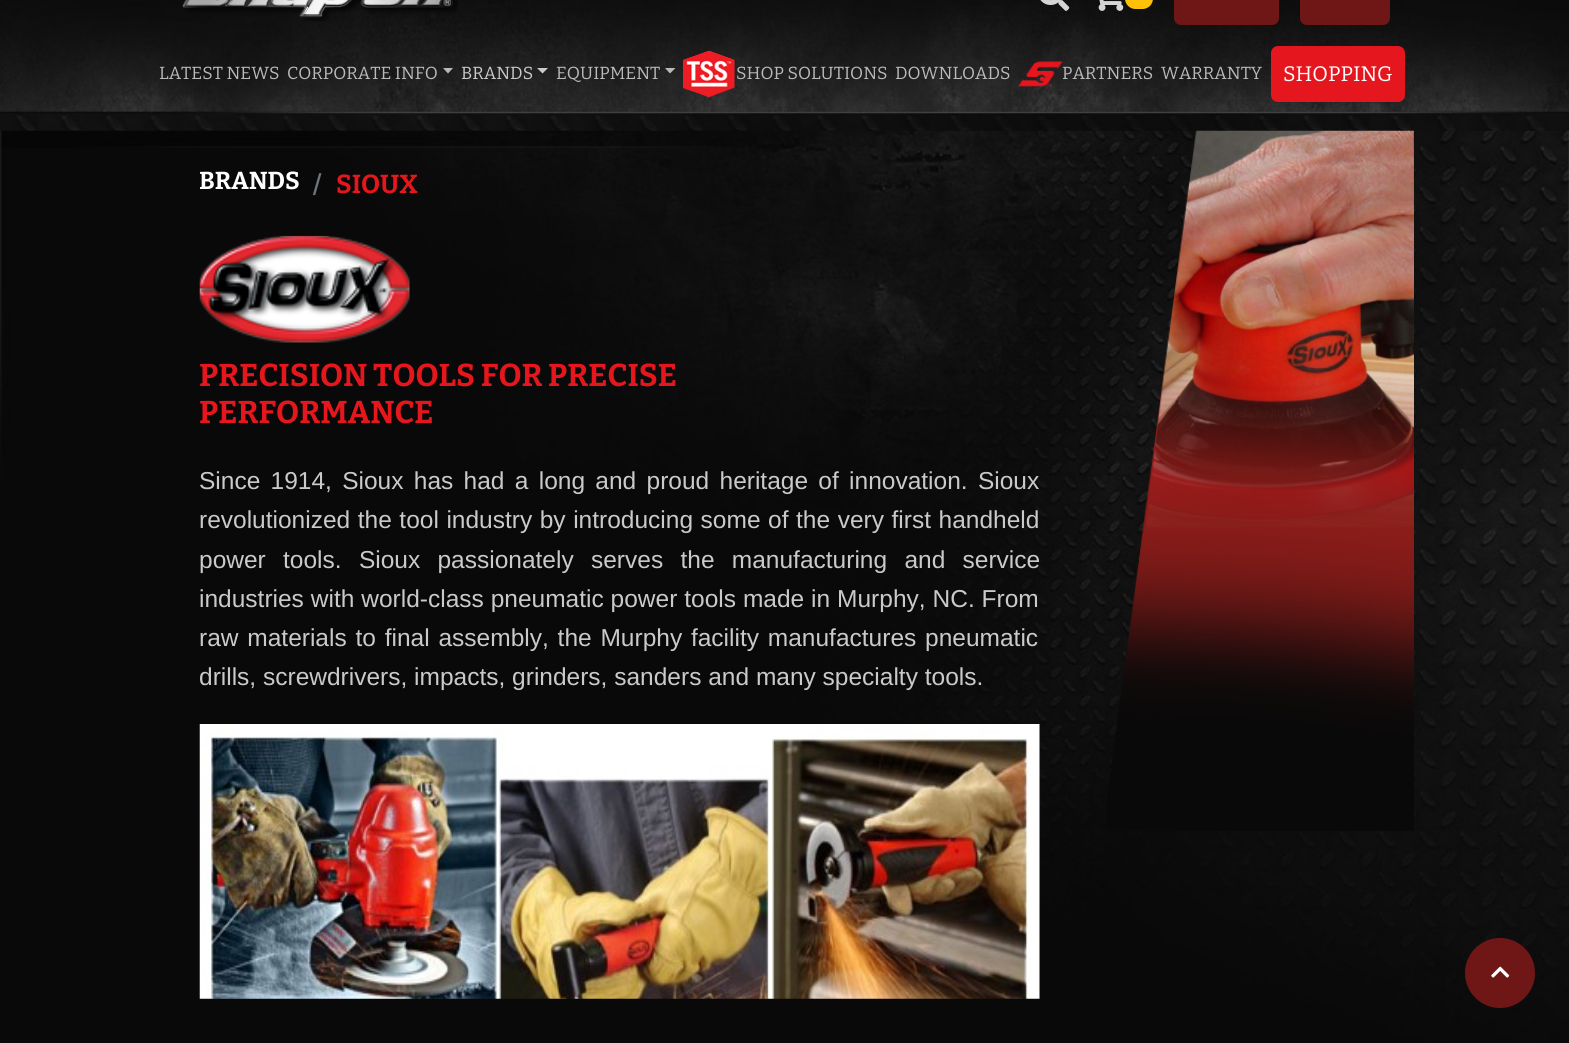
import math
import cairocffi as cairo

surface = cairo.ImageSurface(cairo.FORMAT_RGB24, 1569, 1043)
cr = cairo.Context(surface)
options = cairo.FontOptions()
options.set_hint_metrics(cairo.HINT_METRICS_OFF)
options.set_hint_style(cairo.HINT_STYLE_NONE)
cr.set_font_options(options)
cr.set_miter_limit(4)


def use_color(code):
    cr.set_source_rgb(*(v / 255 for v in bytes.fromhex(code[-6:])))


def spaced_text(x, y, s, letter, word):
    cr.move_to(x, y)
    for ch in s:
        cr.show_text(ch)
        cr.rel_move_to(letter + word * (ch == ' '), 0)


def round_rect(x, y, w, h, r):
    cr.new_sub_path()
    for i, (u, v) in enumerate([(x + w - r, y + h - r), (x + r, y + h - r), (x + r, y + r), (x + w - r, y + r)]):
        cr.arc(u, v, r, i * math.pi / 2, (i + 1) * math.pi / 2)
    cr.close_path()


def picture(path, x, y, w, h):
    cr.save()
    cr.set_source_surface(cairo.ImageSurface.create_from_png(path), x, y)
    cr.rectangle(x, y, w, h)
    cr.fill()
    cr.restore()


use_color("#ffffff")
cr.paint()
picture("img1.png", 0, 113, 1569, 18)
picture("img2.png", 0, 0, 1569, 114)
picture("img3.png", 182, 0, 276, 21)
picture("img4.png", 1040, 0, 30, 11)
picture("img5.png", 1098, 0, 26, 11)
use_color("#ffc107")
round_rect(1125, -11, 28, 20, 10.5)
cr.fill()
use_color("#6f1717")
round_rect(1175, -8, 103, 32, 6)
cr.fill_preserve()
cr.stroke()
round_rect(1301, -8, 88, 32, 6)
cr.fill_preserve()
cr.stroke()
cr.select_font_face("Bitter Thin")
cr.set_font_size(17.5)
use_color("#bababa")
cr.move_to(159, 79)
cr.show_text("LATEST NEWS")
cr.move_to(287, 79)
cr.show_text("CORPORATE INFO")
cr.new_path()
cr.move_to(443, 68)
cr.line_to(453, 68)
cr.line_to(448, 73.5)
cr.close_path()
cr.fill()
use_color("#cacaca")
cr.move_to(461, 79)
cr.show_text("BRANDS")
cr.new_path()
cr.move_to(537, 68)
cr.line_to(548, 68)
cr.line_to(542.5, 73.5)
cr.close_path()
cr.fill()
use_color("#bababa")
cr.move_to(556, 79)
cr.show_text("EQUIPMENT")
cr.new_path()
cr.move_to(665, 68)
cr.line_to(675.5, 68)
cr.line_to(670, 73.5)
cr.close_path()
cr.fill()
picture("img6.png", 682, 50, 53, 47)
cr.move_to(736, 79)
cr.show_text("SHOP SOLUTIONS")
cr.move_to(895, 79)
cr.show_text("DOWNLOADS")
picture("img7.png", 1018, 61, 45, 26)
cr.move_to(1062, 79)
cr.show_text("PARTNERS")
cr.move_to(1161, 79)
cr.show_text("WARRANTY")
use_color("#e5161e")
round_rect(1271, 46, 134, 56, 7)
cr.fill()
cr.set_font_size(21)
use_color("#ffffff")
cr.move_to(1283, 81)
cr.show_text("SHOPPING")
picture("img8.png", 0, 130, 1569, 913)
cr.save()
round_rect(200, 163, 875, 42, 7)
cr.clip()
cr.select_font_face("Bitter", cairo.FONT_SLANT_NORMAL, cairo.FONT_WEIGHT_BOLD)
cr.set_font_size(24.5)
cr.move_to(199, 189)
cr.show_text("BRANDS")
cr.restore()
cr.select_font_face("Bitter", cairo.FONT_SLANT_NORMAL, cairo.FONT_WEIGHT_BOLD)
cr.set_font_size(24.5)
use_color("#6c757d")
cr.move_to(313, 193)
cr.show_text("/")
cr.set_font_size(26)
use_color("#e5161c")
cr.move_to(336, 193)
cr.show_text("SIOUX")
picture("img9.png", 199, 235, 211, 108)
cr.save()
cr.rectangle(200, 236, 875, 763)
cr.clip()
cr.set_font_size(31.5)
cr.move_to(199, 386)
cr.show_text("PRECISION TOOLS FOR PRECISE")
cr.move_to(199, 423)
cr.show_text("PERFORMANCE")
cr.restore()
cr.select_font_face("Liberation Sans")
cr.set_font_size(24.5)
use_color("#cacaca")
spaced_text(199, 489, "Since 1914, Sioux has had a long and proud heritage of innovation. Sioux", 0, 3.5)
spaced_text(199, 528, "revolutionized the tool industry by introducing some of the very first handheld", 0, 0.75)
spaced_text(199, 568, "power tools. Sioux passionately serves the manufacturing and service", 0, 10.5)
spaced_text(199, 607, "industries with world-class pneumatic power tools made in Murphy, NC. From", 0, 0.1)
spaced_text(199, 646, "raw materials to final assembly, the Murphy facility manufactures pneumatic", 0, 2)
cr.save()
cr.rectangle(200, 236, 875, 763)
cr.clip()
cr.move_to(199, 685)
cr.show_text("drills, screwdrivers, impacts, grinders, sanders and many specialty tools.")
cr.restore()
picture("img10.png", 199, 724, 841, 275)
picture("img11.png", 1107, 130, 307, 701)
use_color("#6f1717")
cr.arc(1500, 973, 35, 0, 2 * math.pi)
cr.fill()
picture("img12.png", 1491, 966, 19, 12)
surface.write_to_png("result.png")
